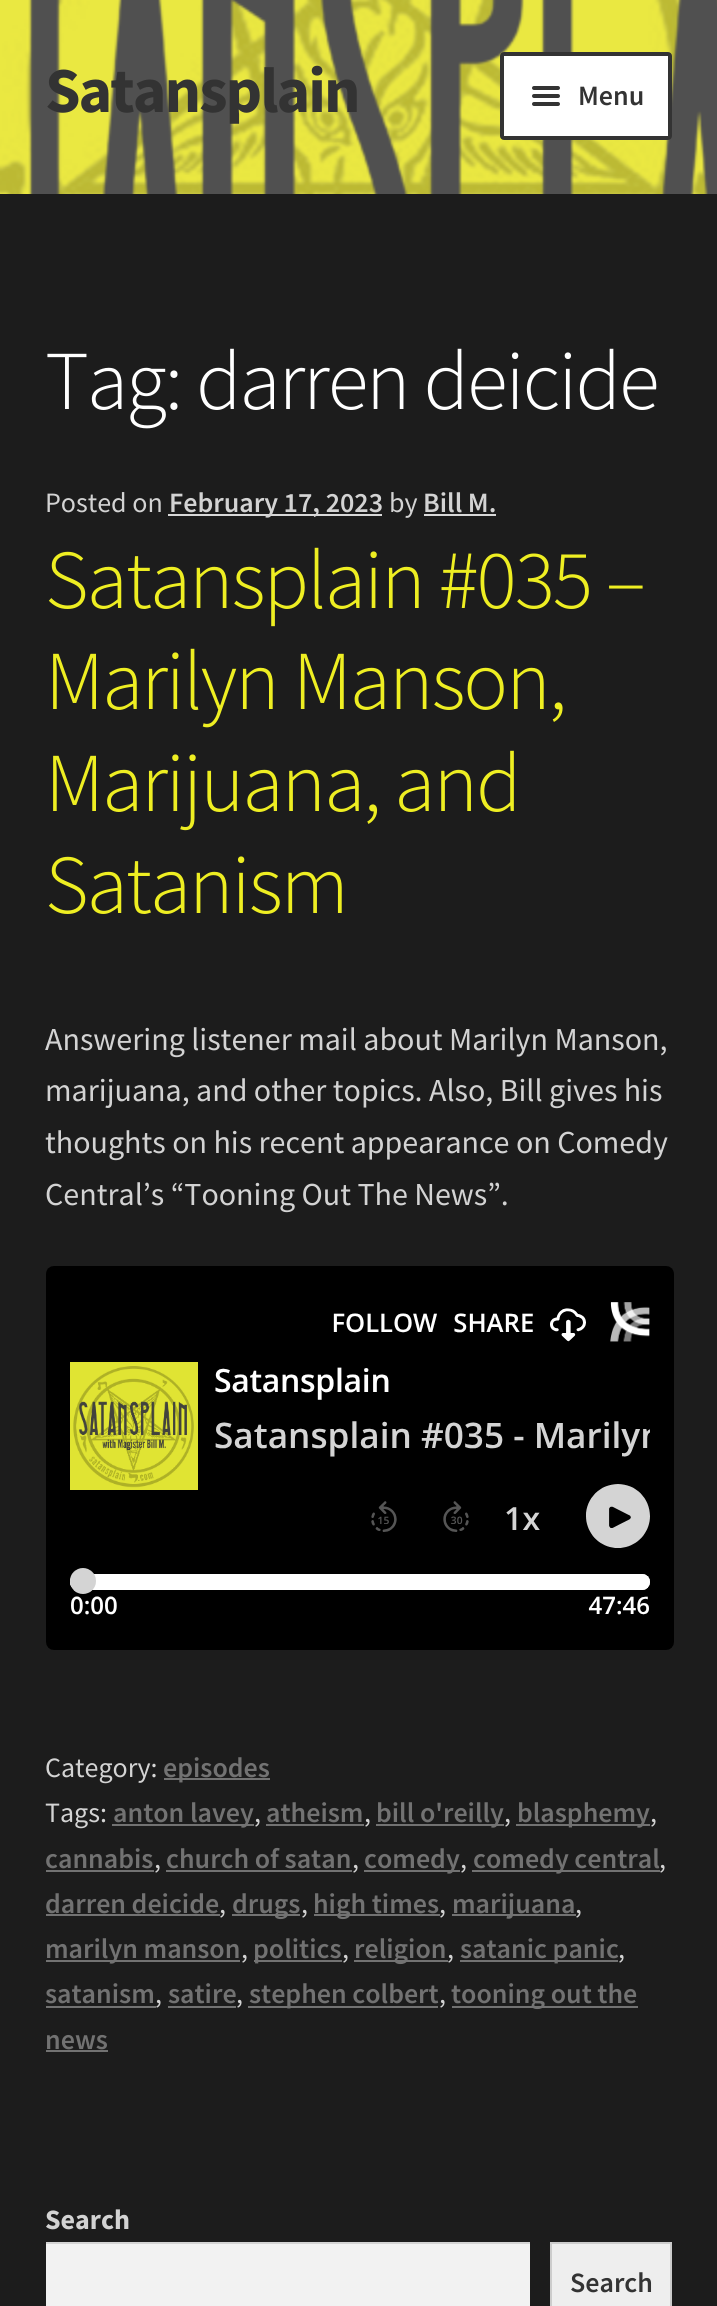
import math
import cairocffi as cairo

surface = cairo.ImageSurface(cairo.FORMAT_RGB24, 717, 2306)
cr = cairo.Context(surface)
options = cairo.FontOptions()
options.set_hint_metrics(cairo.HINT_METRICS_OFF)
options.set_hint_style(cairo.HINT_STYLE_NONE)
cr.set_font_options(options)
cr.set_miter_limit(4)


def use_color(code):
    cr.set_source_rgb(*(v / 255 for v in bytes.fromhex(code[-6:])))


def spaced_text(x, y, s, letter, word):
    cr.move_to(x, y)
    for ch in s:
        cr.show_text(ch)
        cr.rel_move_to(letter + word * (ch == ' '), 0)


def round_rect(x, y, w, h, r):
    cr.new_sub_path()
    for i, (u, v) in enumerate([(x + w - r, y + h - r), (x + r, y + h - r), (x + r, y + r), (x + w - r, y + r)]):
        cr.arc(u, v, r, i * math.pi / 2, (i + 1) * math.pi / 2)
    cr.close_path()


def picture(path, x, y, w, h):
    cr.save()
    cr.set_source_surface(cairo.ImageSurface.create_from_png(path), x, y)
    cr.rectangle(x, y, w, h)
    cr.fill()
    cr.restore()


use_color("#1c1c1c")
cr.paint()
picture("img1.png", 0, 0, 717, 194)
cr.select_font_face("Source Sans Pro", cairo.FONT_SLANT_NORMAL, cairo.FONT_WEIGHT_BOLD)
cr.set_font_size(64)
use_color("#333333")
spaced_text(45, 112, "Satansplain", -2, 0)
use_color("#ffffff")
round_rect(502, 54, 168, 84, 2)
cr.fill_preserve()
use_color("#333333")
cr.set_line_width(4)
cr.stroke()
round_rect(532, 86, 28, 4, 2)
cr.fill()
round_rect(532, 94, 28, 4, 2)
cr.fill()
cr.select_font_face("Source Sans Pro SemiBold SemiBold")
cr.set_font_size(28)
cr.move_to(578, 105)
cr.show_text("Menu")
round_rect(532, 102, 28, 4, 2)
cr.fill()
cr.select_font_face("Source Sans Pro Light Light")
cr.set_font_size(83.75)
use_color("#ffffff")
spaced_text(45, 409, "Tag: darren deicide", -2, 0)
cr.select_font_face("Source Sans Pro")
cr.set_font_size(28)
use_color("#d3d3d3")
cr.move_to(45, 512)
cr.show_text("Posted on")
use_color("#d8d8d8")
cr.rectangle(168, 514, 214, 2)
cr.fill()
cr.select_font_face("Source Sans Pro SemiBold SemiBold")
use_color("#d3d3d3")
cr.move_to(169, 512)
cr.show_text("February 17, 2023")
cr.select_font_face("Source Sans Pro")
cr.move_to(389, 512)
cr.show_text("by")
cr.select_font_face("Source Sans Pro SemiBold SemiBold")
cr.move_to(423, 512)
cr.show_text("Bill M.")
use_color("#d8d8d8")
cr.rectangle(424, 514, 72, 2)
cr.fill()
cr.select_font_face("Source Sans Pro Light Light")
cr.set_font_size(83.75)
use_color("#eeee22")
spaced_text(45, 608, "Satansplain #035 –", -2, 0)
spaced_text(45, 709, "Marilyn Manson,", -2, 0)
spaced_text(45, 811, "Marijuana, and", -2, 0)
spaced_text(45, 913, "Satanism", -2, 0)
cr.select_font_face("Source Sans Pro")
cr.set_font_size(32)
use_color("#d3d3d3")
cr.move_to(45, 1050)
cr.show_text("Answering listener mail about Marilyn Manson,")
cr.move_to(45, 1101)
cr.show_text("marijuana, and other topics. Also, Bill gives his")
cr.move_to(45, 1153)
cr.show_text("thoughts on his recent appearance on Comedy")
cr.move_to(45, 1205)
cr.show_text("Central’s “Tooning Out The News”.")
picture("img2.png", 46, 1266, 628, 384)
cr.set_font_size(28)
cr.move_to(45, 1777)
cr.show_text("Category:")
use_color("#727272")
cr.rectangle(164, 1778, 106, 2)
cr.fill()
cr.select_font_face("Source Sans Pro SemiBold SemiBold")
cr.move_to(163, 1777)
cr.show_text("episodes")
cr.select_font_face("Source Sans Pro")
use_color("#d3d3d3")
cr.move_to(45, 1822)
cr.show_text("Tags:")
use_color("#727272")
cr.rectangle(112, 1824, 142, 2)
cr.fill()
cr.select_font_face("Source Sans Pro SemiBold SemiBold")
cr.move_to(113, 1822)
cr.show_text("anton lavey")
cr.select_font_face("Source Sans Pro")
use_color("#d3d3d3")
cr.move_to(254, 1822)
cr.show_text(",")
cr.select_font_face("Source Sans Pro SemiBold SemiBold")
use_color("#727272")
cr.move_to(266, 1822)
cr.show_text("atheism")
cr.rectangle(266, 1824, 98, 2)
cr.fill()
cr.select_font_face("Source Sans Pro")
use_color("#d3d3d3")
cr.move_to(364, 1822)
cr.show_text(",")
use_color("#727272")
cr.rectangle(376, 1824, 128, 2)
cr.fill()
cr.select_font_face("Source Sans Pro SemiBold SemiBold")
cr.move_to(376, 1822)
cr.show_text("bill o'reilly")
cr.select_font_face("Source Sans Pro")
use_color("#d3d3d3")
cr.move_to(504, 1822)
cr.show_text(",")
use_color("#727272")
cr.rectangle(516, 1824, 134, 2)
cr.fill()
cr.select_font_face("Source Sans Pro SemiBold SemiBold")
cr.move_to(517, 1822)
cr.show_text("blasphemy")
cr.select_font_face("Source Sans Pro")
use_color("#d3d3d3")
cr.move_to(650, 1822)
cr.show_text(",")
cr.select_font_face("Source Sans Pro SemiBold SemiBold")
use_color("#727272")
cr.move_to(45, 1868)
cr.show_text("cannabis")
cr.rectangle(46, 1870, 108, 2)
cr.fill()
cr.select_font_face("Source Sans Pro")
use_color("#d3d3d3")
cr.move_to(154, 1868)
cr.show_text(",")
cr.select_font_face("Source Sans Pro SemiBold SemiBold")
use_color("#727272")
cr.move_to(166, 1868)
cr.show_text("church of satan")
cr.rectangle(166, 1870, 186, 2)
cr.fill()
cr.select_font_face("Source Sans Pro")
use_color("#d3d3d3")
cr.move_to(352, 1868)
cr.show_text(",")
use_color("#727272")
cr.rectangle(364, 1870, 96, 2)
cr.fill()
cr.select_font_face("Source Sans Pro SemiBold SemiBold")
cr.move_to(364, 1868)
cr.show_text("comedy")
cr.select_font_face("Source Sans Pro")
use_color("#d3d3d3")
cr.move_to(460, 1868)
cr.show_text(",")
use_color("#727272")
cr.rectangle(472, 1870, 188, 2)
cr.fill()
cr.select_font_face("Source Sans Pro SemiBold SemiBold")
cr.move_to(473, 1868)
cr.show_text("comedy central")
cr.select_font_face("Source Sans Pro")
use_color("#d3d3d3")
cr.move_to(659, 1868)
cr.show_text(",")
cr.select_font_face("Source Sans Pro SemiBold SemiBold")
use_color("#727272")
cr.move_to(45, 1913)
cr.show_text("darren deicide")
cr.rectangle(46, 1914, 174, 2)
cr.fill()
cr.select_font_face("Source Sans Pro")
use_color("#d3d3d3")
cr.move_to(219, 1913)
cr.show_text(",")
use_color("#727272")
cr.rectangle(232, 1914, 68, 2)
cr.fill()
cr.select_font_face("Source Sans Pro SemiBold SemiBold")
cr.move_to(232, 1913)
cr.show_text("drugs")
cr.select_font_face("Source Sans Pro")
use_color("#d3d3d3")
cr.move_to(301, 1913)
cr.show_text(",")
use_color("#727272")
cr.rectangle(314, 1914, 126, 2)
cr.fill()
cr.select_font_face("Source Sans Pro SemiBold SemiBold")
cr.move_to(313, 1913)
cr.show_text("high times")
cr.select_font_face("Source Sans Pro")
use_color("#d3d3d3")
cr.move_to(439, 1913)
cr.show_text(",")
use_color("#727272")
cr.rectangle(452, 1914, 124, 2)
cr.fill()
cr.select_font_face("Source Sans Pro SemiBold SemiBold")
cr.move_to(452, 1913)
cr.show_text("marijuana")
cr.select_font_face("Source Sans Pro")
use_color("#d3d3d3")
cr.move_to(575, 1913)
cr.show_text(",")
use_color("#727272")
cr.rectangle(46, 1960, 194, 2)
cr.fill()
cr.select_font_face("Source Sans Pro SemiBold SemiBold")
cr.move_to(45, 1958)
cr.show_text("marilyn manson")
cr.select_font_face("Source Sans Pro")
use_color("#d3d3d3")
cr.move_to(241, 1958)
cr.show_text(",")
use_color("#727272")
cr.rectangle(254, 1960, 88, 2)
cr.fill()
cr.select_font_face("Source Sans Pro SemiBold SemiBold")
cr.move_to(253, 1958)
cr.show_text("politics")
cr.select_font_face("Source Sans Pro")
use_color("#d3d3d3")
cr.move_to(342, 1958)
cr.show_text(",")
use_color("#727272")
cr.rectangle(354, 1960, 94, 2)
cr.fill()
cr.select_font_face("Source Sans Pro SemiBold SemiBold")
cr.move_to(354, 1958)
cr.show_text("religion")
cr.select_font_face("Source Sans Pro")
use_color("#d3d3d3")
cr.move_to(447, 1958)
cr.show_text(",")
use_color("#727272")
cr.rectangle(460, 1960, 158, 2)
cr.fill()
cr.select_font_face("Source Sans Pro SemiBold SemiBold")
cr.move_to(460, 1958)
cr.show_text("satanic panic")
cr.select_font_face("Source Sans Pro")
use_color("#d3d3d3")
cr.move_to(618, 1958)
cr.show_text(",")
cr.select_font_face("Source Sans Pro SemiBold SemiBold")
use_color("#727272")
cr.move_to(45, 2003)
cr.show_text("satanism")
cr.rectangle(46, 2006, 110, 2)
cr.fill()
cr.select_font_face("Source Sans Pro")
use_color("#d3d3d3")
cr.move_to(155, 2003)
cr.show_text(",")
cr.select_font_face("Source Sans Pro SemiBold SemiBold")
use_color("#727272")
cr.move_to(168, 2003)
cr.show_text("satire")
cr.rectangle(168, 2006, 68, 2)
cr.fill()
cr.select_font_face("Source Sans Pro")
use_color("#d3d3d3")
cr.move_to(236, 2003)
cr.show_text(",")
use_color("#727272")
cr.rectangle(248, 2006, 190, 2)
cr.fill()
cr.select_font_face("Source Sans Pro SemiBold SemiBold")
cr.move_to(249, 2003)
cr.show_text("stephen colbert")
cr.select_font_face("Source Sans Pro")
use_color("#d3d3d3")
cr.move_to(439, 2003)
cr.show_text(",")
use_color("#727272")
cr.rectangle(452, 2006, 186, 2)
cr.fill()
cr.select_font_face("Source Sans Pro SemiBold SemiBold")
cr.move_to(451, 2003)
cr.show_text("tooning out the")
cr.move_to(45, 2049)
cr.show_text("news")
cr.rectangle(46, 2050, 62, 2)
cr.fill()
cr.select_font_face("Source Sans Pro", cairo.FONT_SLANT_NORMAL, cairo.FONT_WEIGHT_BOLD)
use_color("#d3d3d3")
cr.move_to(45, 2229)
cr.show_text("Search")
use_color("#f2f2f2")
cr.rectangle(46, 2244, 484, 62)
cr.fill()
use_color("#d4d4d4")
cr.rectangle(46, 2242, 484, 2)
cr.fill()
use_color("#eeeeee")
cr.rectangle(551, 2243, 120, 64)
cr.fill_preserve()
use_color("#cccccc")
cr.set_line_width(2)
cr.stroke()
cr.select_font_face("Source Sans Pro SemiBold SemiBold")
use_color("#333333")
cr.move_to(570, 2292)
cr.show_text("Search")
surface.write_to_png("result.png")
